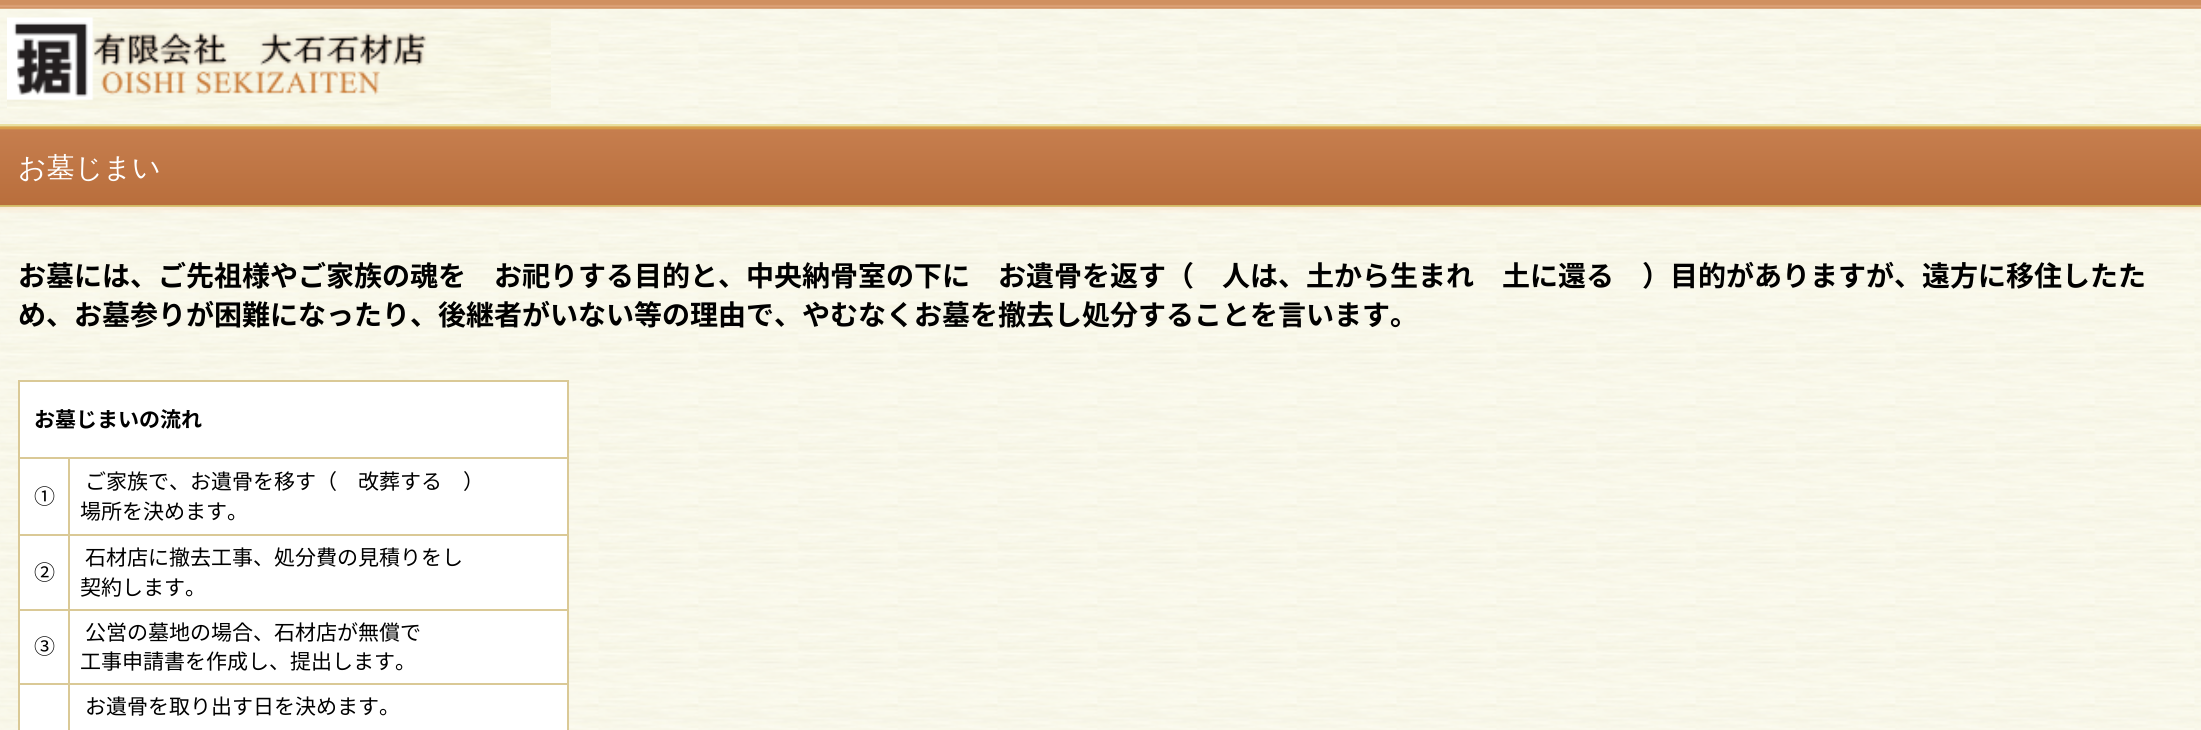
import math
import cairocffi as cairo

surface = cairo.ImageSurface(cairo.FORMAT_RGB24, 2201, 730)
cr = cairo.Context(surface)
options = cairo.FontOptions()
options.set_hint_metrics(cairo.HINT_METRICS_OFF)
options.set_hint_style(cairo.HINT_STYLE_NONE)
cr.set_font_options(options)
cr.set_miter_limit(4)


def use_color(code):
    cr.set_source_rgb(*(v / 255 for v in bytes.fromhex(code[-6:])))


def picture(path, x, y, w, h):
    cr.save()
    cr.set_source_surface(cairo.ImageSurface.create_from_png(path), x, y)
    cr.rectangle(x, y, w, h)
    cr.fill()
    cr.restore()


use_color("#ffffff")
cr.paint()
picture("img1.png", 0, 8, 2201, 722)
picture("img2.png", 0, 0, 2201, 9)
picture("img3.png", 7, 17, 544, 92)
gradient = cairo.LinearGradient(0, 126, 0, 205)
gradient.add_color_stop_rgba(0, 0.91, 0.878, 0.624, 1)
gradient.add_color_stop_rgba(0.01, 0.847, 0.631, 0.294, 1)
gradient.add_color_stop_rgba(0.03, 0.847, 0.631, 0.294, 1)
gradient.add_color_stop_rgba(0.05, 0.776, 0.494, 0.306, 1)
gradient.add_color_stop_rgba(1, 0.725, 0.431, 0.235, 1)
cr.set_source(gradient)
cr.rectangle(0, 126, 2201, 79)
cr.fill()
use_color("#e8e09f")
cr.rectangle(0, 124, 2201, 2)
cr.fill()
use_color("#d1ba64")
cr.rectangle(0, 205, 2201, 2)
cr.fill()
cr.select_font_face("WenQuanYi Zen Hei Medium")
cr.set_font_size(28)
use_color("#ffffff")
cr.move_to(18, 177)
cr.show_text("お墓じまい")
picture("img4.png", 0, 206, 2201, 7)
cr.select_font_face("Noto Sans JP", cairo.FONT_SLANT_NORMAL, cairo.FONT_WEIGHT_BOLD)
use_color("#000000")
cr.move_to(18, 286)
cr.show_text("お墓には、ご先祖様やご家族の魂を　お祀りする目的と、中央納骨室の下に　お遺骨を返す（　人は、土から生まれ　土に還る　）目的がありますが、遠方に移住したた")
cr.move_to(18, 325)
cr.show_text("め、お墓参りが困難になったり、後継者がいない等の理由で、やむなくお墓を撤去し処分することを言います。")
use_color("#dac996")
cr.rectangle(18, 380, 551, 2)
cr.fill()
cr.rectangle(567, 380, 2, 350)
cr.fill()
cr.rectangle(18, 380, 2, 350)
cr.fill()
use_color("#ffffff")
cr.rectangle(20, 382, 547, 75)
cr.fill()
cr.set_font_size(21)
use_color("#000000")
cr.move_to(34, 427)
cr.show_text("お墓じまいの流れ")
use_color("#ffffff")
cr.rectangle(20, 459, 48, 75)
cr.fill()
use_color("#dac996")
cr.rectangle(68, 457, 501, 2)
cr.fill()
cr.rectangle(68, 534, 501, 2)
cr.fill()
cr.rectangle(68, 609, 501, 2)
cr.fill()
cr.rectangle(68, 683, 501, 2)
cr.fill()
cr.rectangle(68, 683, 2, 47)
cr.fill()
cr.rectangle(18, 683, 52, 2)
cr.fill()
cr.rectangle(68, 609, 2, 75)
cr.fill()
cr.rectangle(18, 609, 52, 2)
cr.fill()
cr.rectangle(68, 534, 2, 77)
cr.fill()
cr.rectangle(18, 534, 52, 2)
cr.fill()
cr.rectangle(68, 457, 2, 79)
cr.fill()
cr.rectangle(18, 457, 52, 2)
cr.fill()
cr.select_font_face("Noto Sans JP")
use_color("#000000")
cr.move_to(34, 504)
cr.show_text("①")
use_color("#ffffff")
cr.rectangle(70, 459, 497, 75)
cr.fill()
use_color("#000000")
cr.move_to(85, 489)
cr.show_text("ご家族で、お遺骨を移す（　改葬する　）")
cr.move_to(80, 519)
cr.show_text("場所を決めます。")
use_color("#ffffff")
cr.rectangle(20, 536, 48, 73)
cr.fill()
use_color("#000000")
cr.move_to(34, 580)
cr.show_text("②")
use_color("#ffffff")
cr.rectangle(70, 536, 497, 73)
cr.fill()
use_color("#000000")
cr.move_to(85, 565)
cr.show_text("石材店に撤去工事、処分費の見積りをし")
cr.move_to(80, 595)
cr.show_text("契約します。")
use_color("#ffffff")
cr.rectangle(20, 611, 48, 72)
cr.fill()
use_color("#000000")
cr.move_to(34, 654)
cr.show_text("③")
use_color("#ffffff")
cr.rectangle(70, 611, 497, 72)
cr.fill()
use_color("#000000")
cr.move_to(85, 640)
cr.show_text("公営の墓地の場合、石材店が無償で")
cr.move_to(80, 669)
cr.show_text("工事申請書を作成し、提出します。")
use_color("#ffffff")
cr.rectangle(20, 685, 48, 45)
cr.fill()
cr.rectangle(70, 685, 497, 45)
cr.fill()
use_color("#000000")
cr.move_to(85, 714)
cr.show_text("お遺骨を取り出す日を決めます。")
surface.write_to_png("result.png")
